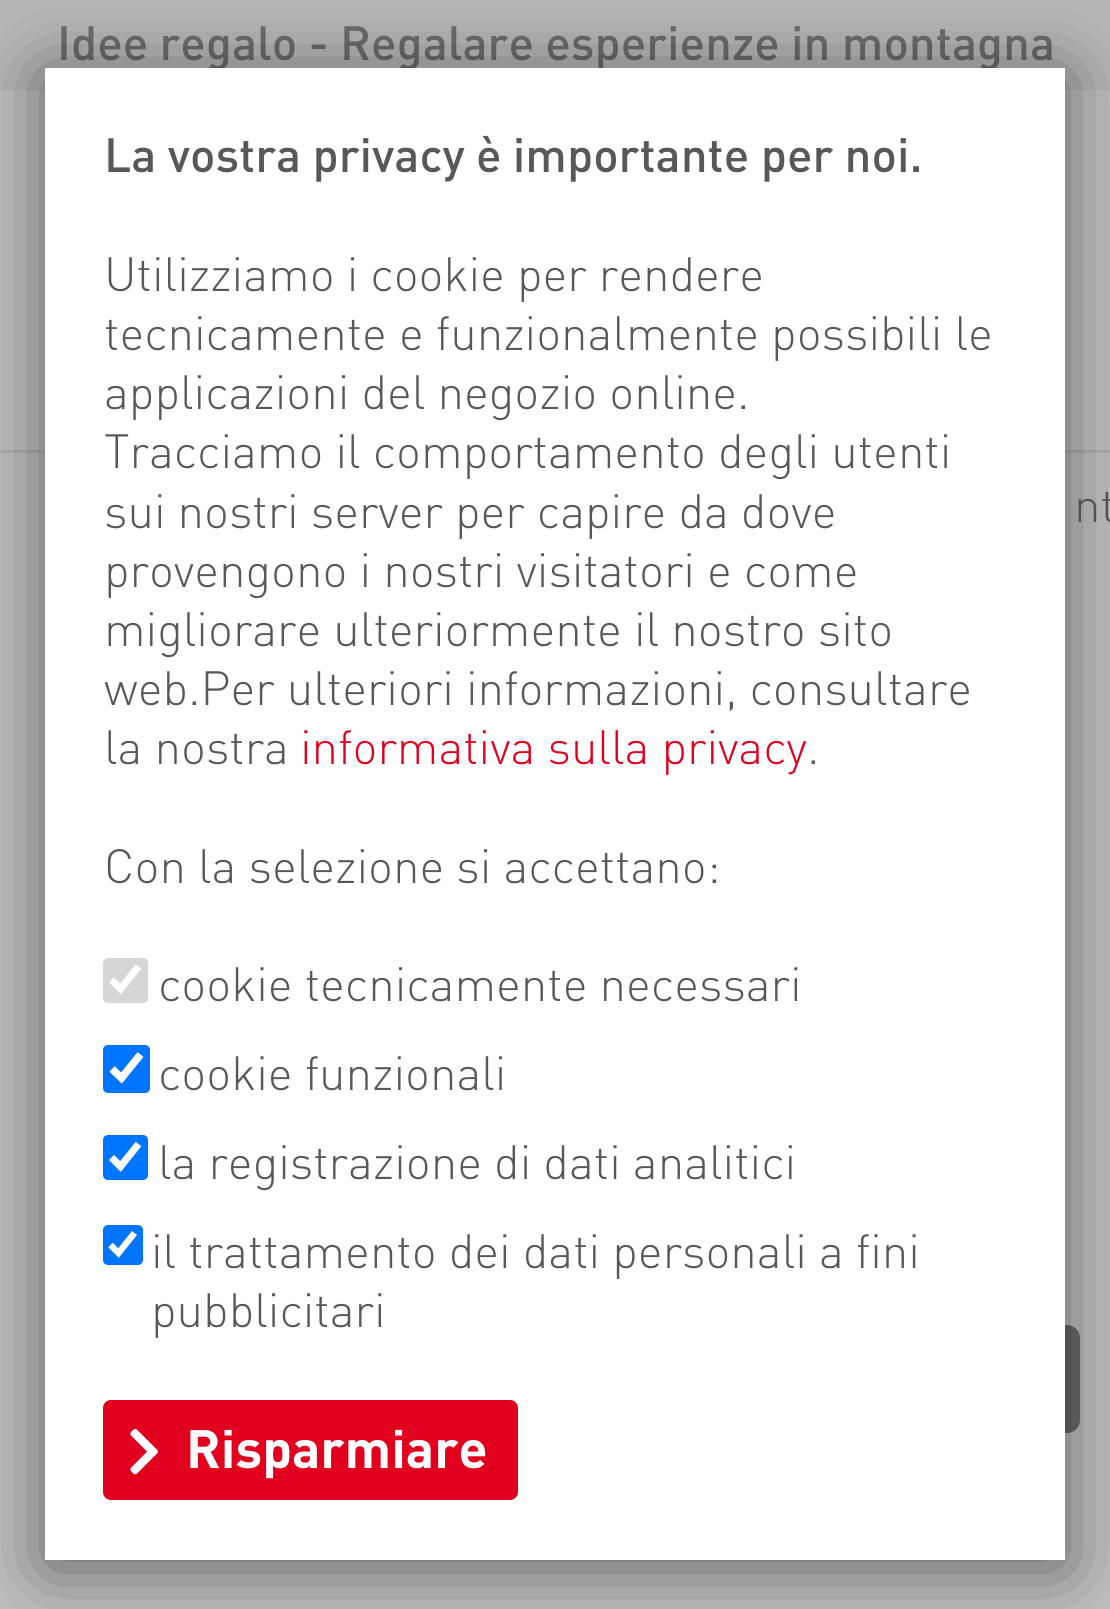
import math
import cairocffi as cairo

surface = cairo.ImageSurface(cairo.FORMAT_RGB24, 1110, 1609)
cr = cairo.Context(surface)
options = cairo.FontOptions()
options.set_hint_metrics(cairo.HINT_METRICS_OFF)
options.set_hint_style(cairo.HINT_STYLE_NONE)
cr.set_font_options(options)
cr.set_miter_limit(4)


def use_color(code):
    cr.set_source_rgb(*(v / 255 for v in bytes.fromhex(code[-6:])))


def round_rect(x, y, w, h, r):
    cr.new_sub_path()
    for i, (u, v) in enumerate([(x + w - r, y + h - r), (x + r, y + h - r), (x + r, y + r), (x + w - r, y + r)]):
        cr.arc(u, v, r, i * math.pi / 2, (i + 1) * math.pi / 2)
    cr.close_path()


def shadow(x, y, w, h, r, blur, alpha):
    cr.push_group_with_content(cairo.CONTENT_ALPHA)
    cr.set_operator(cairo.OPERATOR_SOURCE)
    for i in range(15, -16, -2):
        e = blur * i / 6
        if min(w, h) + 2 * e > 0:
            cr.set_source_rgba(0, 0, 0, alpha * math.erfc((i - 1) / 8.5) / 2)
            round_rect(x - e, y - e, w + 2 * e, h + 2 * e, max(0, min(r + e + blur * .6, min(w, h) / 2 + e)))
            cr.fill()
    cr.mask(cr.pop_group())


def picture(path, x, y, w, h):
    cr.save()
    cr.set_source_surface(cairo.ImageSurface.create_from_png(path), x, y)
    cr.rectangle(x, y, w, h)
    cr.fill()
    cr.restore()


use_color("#c0c0c0")
cr.paint()
use_color("#b7b7b7")
cr.rectangle(0, 0, 1110, 90)
cr.fill()
cr.select_font_face("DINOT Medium")
cr.set_font_size(47.4)
use_color("#6c6c6d")
cr.move_to(57, 60)
cr.show_text("Idee regalo - Regalare esperienze in montagna")
use_color("#b1b1b1")
cr.rectangle(0, 450, 1110, 3)
cr.fill()
use_color("#6c6c6d")
round_rect(975, 1325, 105, 108, 13)
cr.fill()
use_color("#000000")
shadow(45, 75, 1020, 1493, 0, 37.5, 0.5)
use_color("#ffffff")
cr.rectangle(45, 68, 1020, 1492)
cr.fill()
use_color("#58585a")
cr.move_to(104, 172)
cr.show_text("La vostra privacy è importante per noi.")
cr.select_font_face("DINOT Light")
cr.move_to(104, 291)
cr.show_text("Utilizziamo i cookie per rendere")
cr.move_to(104, 350)
cr.show_text("tecnicamente e funzionalmente possibili le")
cr.move_to(104, 409)
cr.show_text("applicazioni del negozio online.")
cr.move_to(104, 468)
cr.show_text("Tracciamo il comportamento degli utenti")
cr.move_to(104, 528)
cr.show_text("sui nostri server per capire da dove")
cr.move_to(104, 587)
cr.show_text("provengono i nostri visitatori e come")
cr.move_to(104, 646)
cr.show_text("migliorare ulteriormente il nostro sito")
cr.move_to(104, 705)
cr.show_text("web.Per ulteriori informazioni, consultare")
cr.move_to(104, 764)
cr.show_text("la nostra")
use_color("#e1001e")
cr.move_to(300, 764)
cr.show_text("informativa sulla privacy")
use_color("#58585a")
cr.move_to(807, 764)
cr.show_text(".")
cr.move_to(104, 883)
cr.show_text("Con la selezione si accettano:")
use_color("#d6d6d6")
round_rect(103, 958, 45, 45, 5)
cr.fill()
cr.new_path()
cr.move_to(111.5, 980)
cr.line_to(120.5, 989)
cr.line_to(138.5, 966.5)
use_color("#ffffff")
cr.set_line_width(7.2)
cr.stroke()
use_color("#58585a")
cr.move_to(158, 1001)
cr.show_text("cookie tecnicamente necessari")
use_color("#0075ff")
round_rect(103, 1045, 47, 48, 5)
cr.fill()
cr.new_path()
cr.move_to(112, 1069)
cr.line_to(121.5, 1078)
cr.line_to(140.5, 1054.5)
use_color("#ffffff")
cr.set_line_width(7.6)
cr.stroke()
use_color("#58585a")
cr.move_to(158, 1090)
cr.show_text("cookie funzionali")
use_color("#0075ff")
round_rect(103, 1135, 45, 45, 5)
cr.fill()
cr.new_path()
cr.move_to(111.5, 1157.5)
cr.line_to(120.5, 1166.5)
cr.line_to(138.5, 1144)
use_color("#ffffff")
cr.set_line_width(7.2)
cr.stroke()
use_color("#58585a")
cr.move_to(158, 1179)
cr.show_text("la registrazione di dati analitici")
use_color("#0075ff")
round_rect(103, 1225, 40, 40, 5)
cr.fill()
cr.new_path()
cr.move_to(110.5, 1245)
cr.line_to(118.5, 1253)
cr.line_to(134.5, 1233)
use_color("#ffffff")
cr.set_line_width(6.4)
cr.stroke()
use_color("#58585a")
cr.move_to(151, 1268)
cr.show_text("il trattamento dei dati personali a fini")
cr.move_to(151, 1327)
cr.show_text("pubblicitari")
use_color("#e1001e")
round_rect(103, 1400, 415, 100, 8)
cr.fill()
picture("img1.png", 130, 1428, 28, 47)
cr.select_font_face("DINOT", cairo.FONT_SLANT_NORMAL, cairo.FONT_WEIGHT_BOLD)
cr.set_font_size(53.25)
use_color("#ffffff")
cr.move_to(186, 1468)
cr.show_text("Risparmiare")
cr.select_font_face("DINOT Light")
cr.set_font_size(47.4)
use_color("#515151")
cr.move_to(1074, 522)
cr.show_text("nt")
surface.write_to_png("result.png")
